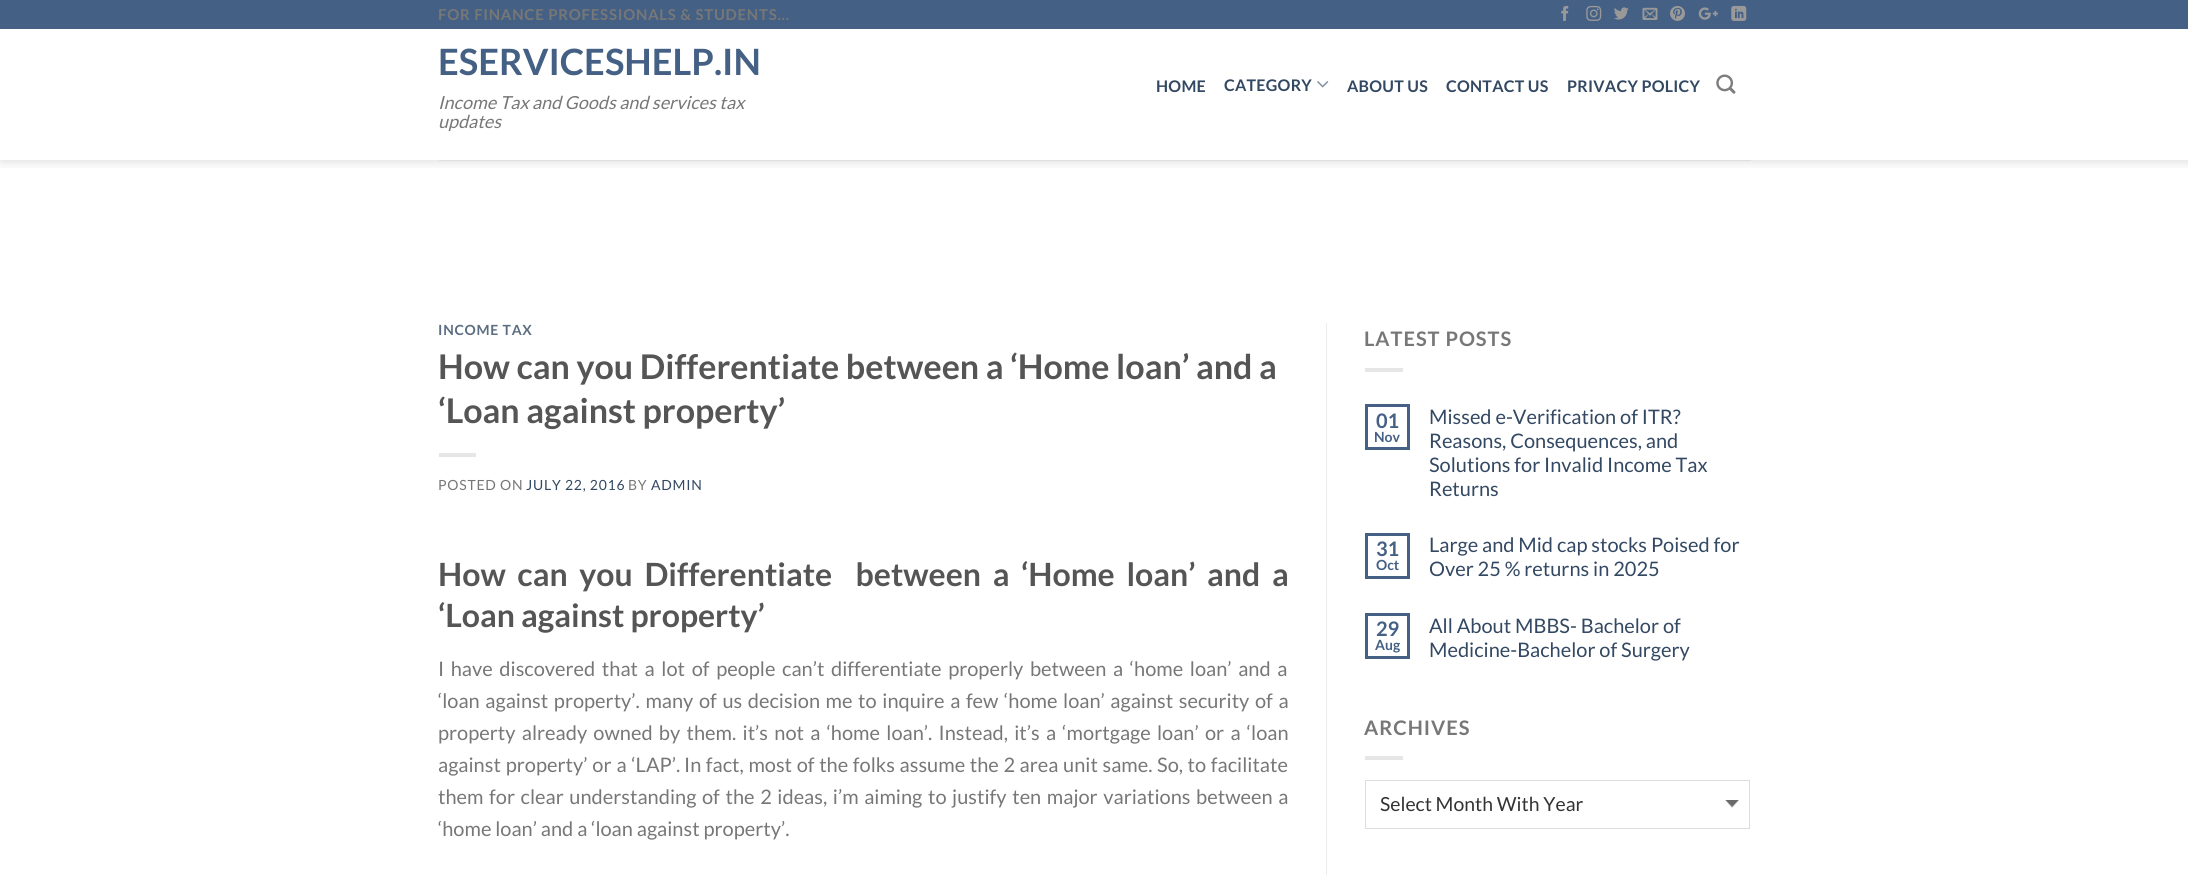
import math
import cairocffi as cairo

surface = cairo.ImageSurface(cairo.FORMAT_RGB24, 2188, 875)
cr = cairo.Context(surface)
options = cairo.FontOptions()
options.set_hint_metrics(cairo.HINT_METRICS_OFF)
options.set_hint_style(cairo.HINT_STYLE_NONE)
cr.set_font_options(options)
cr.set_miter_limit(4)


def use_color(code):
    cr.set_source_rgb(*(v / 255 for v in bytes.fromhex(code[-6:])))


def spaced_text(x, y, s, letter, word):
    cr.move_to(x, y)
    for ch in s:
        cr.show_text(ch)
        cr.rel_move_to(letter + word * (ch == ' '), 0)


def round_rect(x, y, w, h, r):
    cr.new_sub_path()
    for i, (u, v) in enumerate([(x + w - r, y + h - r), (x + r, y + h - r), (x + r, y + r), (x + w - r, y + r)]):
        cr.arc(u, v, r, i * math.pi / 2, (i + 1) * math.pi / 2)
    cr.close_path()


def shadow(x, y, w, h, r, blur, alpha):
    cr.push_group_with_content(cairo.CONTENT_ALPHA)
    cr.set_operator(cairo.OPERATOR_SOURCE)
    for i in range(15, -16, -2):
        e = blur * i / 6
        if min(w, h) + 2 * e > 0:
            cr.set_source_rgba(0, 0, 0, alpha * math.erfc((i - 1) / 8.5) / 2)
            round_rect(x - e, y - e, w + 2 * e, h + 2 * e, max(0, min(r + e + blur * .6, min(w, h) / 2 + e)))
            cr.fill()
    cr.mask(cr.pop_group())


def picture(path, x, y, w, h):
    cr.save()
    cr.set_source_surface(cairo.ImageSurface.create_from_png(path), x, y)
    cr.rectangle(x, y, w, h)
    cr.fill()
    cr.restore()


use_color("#ffffff")
cr.paint()
cr.save()
cr.rectangle(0, 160, 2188, 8)
cr.clip()
use_color("#000000")
shadow(1, 1, 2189, 160, 0, 6, 0.15)
cr.restore()
use_color("#446084")
cr.rectangle(0, 0, 2188, 29)
cr.fill()
cr.select_font_face("Lato", cairo.FONT_SLANT_NORMAL, cairo.FONT_WEIGHT_BOLD)
cr.set_font_size(15)
use_color("#777777")
spaced_text(438, 20, "FOR FINANCE PROFESSIONALS & STUDENTS...", 0.75, 0)
picture("img1.png", 1561, 5, 8, 16)
picture("img2.png", 1586, 5, 16, 16)
picture("img3.png", 1614, 7, 15, 13)
picture("img4.png", 1642, 7, 16, 13)
picture("img5.png", 1670, 6, 15, 15)
picture("img6.png", 1698, 7, 20, 13)
picture("img7.png", 1731, 5, 16, 16)
cr.set_font_size(36.25)
use_color("#446084")
cr.move_to(438, 75)
cr.show_text("ESERVICESHELP.IN")
cr.select_font_face("Lato", cairo.FONT_SLANT_ITALIC)
cr.set_font_size(18)
use_color("#777777")
cr.move_to(438, 109)
cr.show_text("Income Tax and Goods and services tax")
cr.move_to(438, 128)
cr.show_text("updates")
cr.select_font_face("Lato", cairo.FONT_SLANT_NORMAL, cairo.FONT_WEIGHT_BOLD)
cr.set_font_size(16)
use_color("#334862")
spaced_text(1156, 92, "HOME", 0.25, 0)
spaced_text(1224, 91, "CATEGORY", 0.25, 0)
picture("img8.png", 1317, 81, 12, 7)
spaced_text(1347, 92, "ABOUT US", 0.25, 0)
spaced_text(1446, 92, "CONTACT US", 0.25, 0)
spaced_text(1567, 92, "PRIVACY POLICY", 0.25, 0)
picture("img9.png", 1716, 74, 20, 20)
use_color("#dfdfdf")
cr.rectangle(439, 160, 1312, 1)
cr.fill()
cr.set_font_size(14)
use_color("#5c6d81")
spaced_text(438, 335, "INCOME TAX", 0.75, 0)
cr.set_font_size(34)
use_color("#555555")
cr.move_to(438, 379)
cr.show_text("How can you Differentiate between a ‘Home loan’ and a")
cr.move_to(438, 423)
cr.show_text("‘Loan against property’")
use_color("#e6e6e6")
cr.rectangle(439, 453, 37, 4)
cr.fill()
cr.select_font_face("Lato")
cr.set_font_size(14)
use_color("#777777")
spaced_text(438, 490, "POSTED ON", 0.75, 0)
use_color("#334862")
spaced_text(526, 490, "JULY 22, 2016", 0.75, 0)
use_color("#777777")
spaced_text(628, 490, "BY", 0.75, 0)
use_color("#334862")
spaced_text(651, 490, "ADMIN", 0.75, 0)
cr.select_font_face("Lato", cairo.FONT_SLANT_NORMAL, cairo.FONT_WEIGHT_BOLD)
cr.set_font_size(32)
use_color("#555555")
spaced_text(438, 586, "How can you Differentiate  between a ‘Home loan’ and a", 0, 5.5)
cr.move_to(438, 627)
cr.show_text("‘Loan against property’")
cr.select_font_face("Lato")
cr.set_font_size(20)
use_color("#777777")
spaced_text(438, 676, "I have discovered that a lot of people can’t differentiate properly between a ‘home loan’ and a", 0, 2.75)
spaced_text(438, 708, "‘loan against property’. many of us decision me to inquire a few ‘home loan’ against security of a", 0, 1.75)
spaced_text(438, 740, "property already owned by them. it’s not a ‘home loan’. Instead, it’s a ‘mortgage loan’ or a ‘loan", 0, 2.4)
spaced_text(438, 772, "against property’ or a ‘LAP’.", 0, 1)
spaced_text(684, 772, "In fact, most of the folks assume the 2 area unit same. So, to facilitate", 0, 0.75)
spaced_text(438, 804, "them for clear understanding of the 2 ideas, i’m aiming to justify ten major variations between a", 0, 1.75)
cr.move_to(438, 836)
cr.show_text("‘home loan’ and a ‘loan against property’.")
use_color("#ececec")
cr.rectangle(1326, 323, 1, 552)
cr.fill()
cr.select_font_face("Lato", cairo.FONT_SLANT_NORMAL, cairo.FONT_WEIGHT_BOLD)
use_color("#777777")
spaced_text(1364, 346, "LATEST POSTS", 1, 0)
use_color("#e6e6e6")
cr.rectangle(1365, 368, 38, 4)
cr.fill()
cr.rectangle(1366.5, 405.5, 42, 43)
use_color("#446084")
cr.set_line_width(3)
cr.stroke()
cr.move_to(1376, 428)
cr.show_text("01")
cr.set_font_size(14)
cr.move_to(1374, 442)
cr.show_text("Nov")
cr.select_font_face("Lato")
cr.set_font_size(20)
use_color("#334862")
cr.move_to(1429, 424)
cr.show_text("Missed e-Verification of ITR?")
cr.move_to(1429, 448)
cr.show_text("Reasons, Consequences, and")
cr.move_to(1429, 472)
cr.show_text("Solutions for Invalid Income Tax")
cr.move_to(1429, 496)
cr.show_text("Returns")
cr.rectangle(1366.5, 534.5, 42, 43)
use_color("#446084")
cr.stroke()
cr.select_font_face("Lato", cairo.FONT_SLANT_NORMAL, cairo.FONT_WEIGHT_BOLD)
cr.move_to(1376, 556)
cr.show_text("31")
cr.set_font_size(14)
cr.move_to(1376, 570)
cr.show_text("Oct")
cr.select_font_face("Lato")
cr.set_font_size(20)
use_color("#334862")
cr.move_to(1429, 552)
cr.show_text("Large and Mid cap stocks Poised for")
cr.move_to(1429, 576)
cr.show_text("Over 25 % returns in 2025")
cr.rectangle(1366.5, 614.5, 42, 43)
use_color("#446084")
cr.stroke()
cr.select_font_face("Lato", cairo.FONT_SLANT_NORMAL, cairo.FONT_WEIGHT_BOLD)
cr.move_to(1376, 636)
cr.show_text("29")
cr.set_font_size(14)
cr.move_to(1375, 650)
cr.show_text("Aug")
cr.select_font_face("Lato")
cr.set_font_size(20)
use_color("#334862")
cr.move_to(1429, 633)
cr.show_text("All About MBBS- Bachelor of")
cr.move_to(1429, 657)
cr.show_text("Medicine-Bachelor of Surgery")
cr.select_font_face("Lato", cairo.FONT_SLANT_NORMAL, cairo.FONT_WEIGHT_BOLD)
use_color("#777777")
spaced_text(1364, 735, "ARCHIVES", 1, 0)
use_color("#e6e6e6")
cr.rectangle(1365, 756, 38, 4)
cr.fill()
picture("img10.png", 1725, 800, 14, 8)
cr.rectangle(1365.5, 780.5, 384, 48)
use_color("#dddddd")
cr.set_line_width(1)
cr.stroke()
cr.select_font_face("Lato")
cr.set_font_size(19.4)
use_color("#333333")
cr.move_to(1380, 811)
cr.show_text("Select Month With Year")
surface.write_to_png("result.png")
